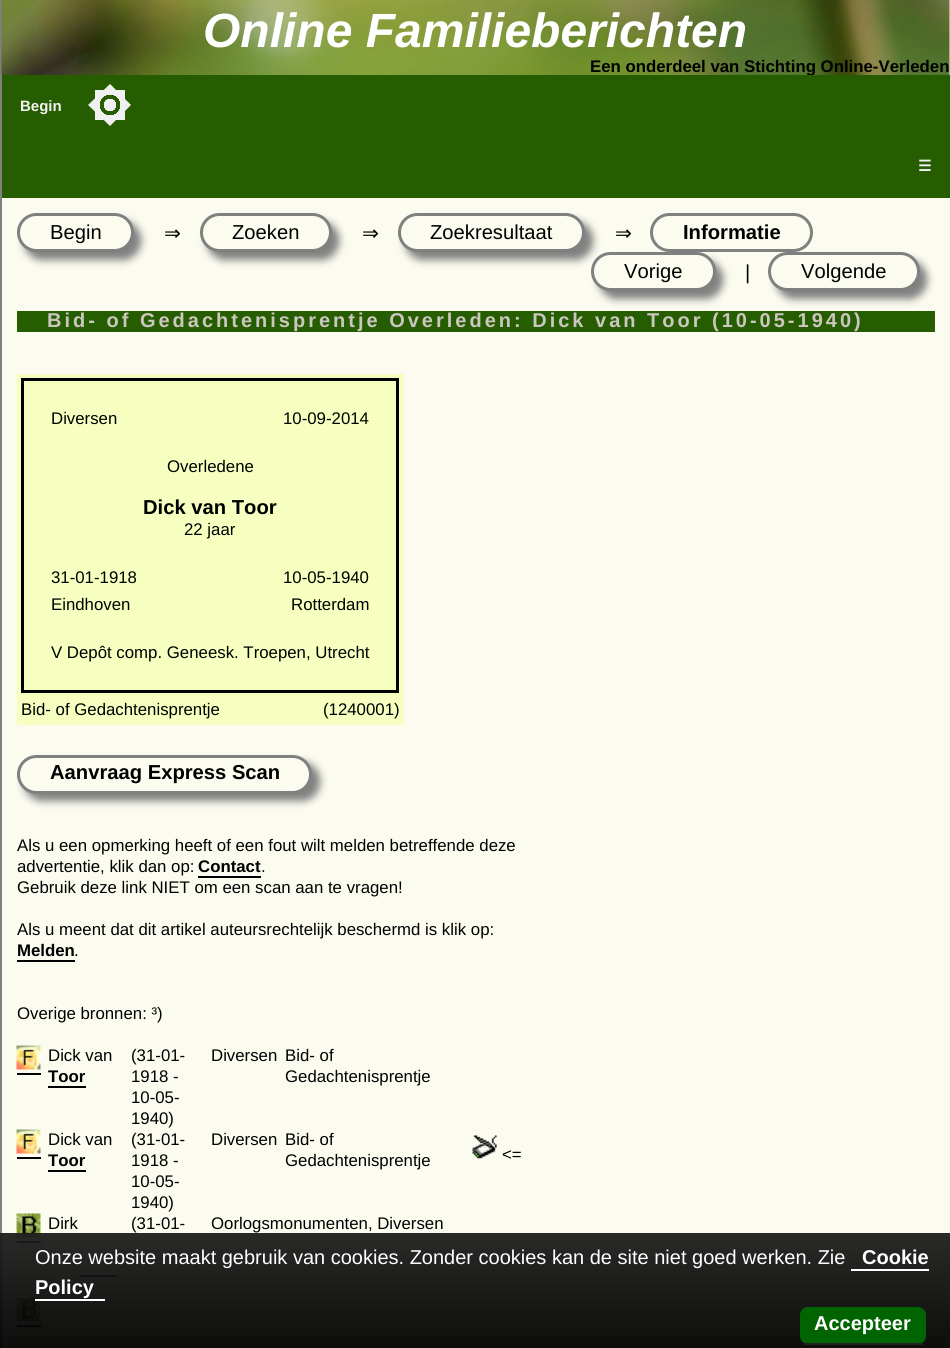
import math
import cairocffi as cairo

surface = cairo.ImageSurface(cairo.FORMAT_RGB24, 950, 1348)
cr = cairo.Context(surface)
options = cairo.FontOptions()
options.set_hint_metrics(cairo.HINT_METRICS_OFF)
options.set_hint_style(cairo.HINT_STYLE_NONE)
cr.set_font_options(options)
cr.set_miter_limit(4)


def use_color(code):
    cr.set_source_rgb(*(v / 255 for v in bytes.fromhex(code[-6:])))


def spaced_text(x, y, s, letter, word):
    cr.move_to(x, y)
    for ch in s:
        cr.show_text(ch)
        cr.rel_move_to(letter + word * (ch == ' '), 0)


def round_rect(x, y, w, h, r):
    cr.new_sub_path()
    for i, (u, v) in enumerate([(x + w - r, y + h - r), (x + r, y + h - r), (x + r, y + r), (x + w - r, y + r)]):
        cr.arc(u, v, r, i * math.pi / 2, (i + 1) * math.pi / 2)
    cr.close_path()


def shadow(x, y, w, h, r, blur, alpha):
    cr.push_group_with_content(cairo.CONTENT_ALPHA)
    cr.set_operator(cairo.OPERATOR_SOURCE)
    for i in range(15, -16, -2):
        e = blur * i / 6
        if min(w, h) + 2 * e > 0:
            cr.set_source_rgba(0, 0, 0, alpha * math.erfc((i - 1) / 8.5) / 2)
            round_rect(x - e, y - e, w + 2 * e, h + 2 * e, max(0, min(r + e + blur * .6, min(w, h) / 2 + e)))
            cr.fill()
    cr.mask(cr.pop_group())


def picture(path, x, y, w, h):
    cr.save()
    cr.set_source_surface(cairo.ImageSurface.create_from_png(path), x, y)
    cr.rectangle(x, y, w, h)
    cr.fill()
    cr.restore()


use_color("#fcfbf0")
cr.paint()
use_color("#808080")
cr.rectangle(0, 0, 2, 1348)
cr.fill()
picture("img1.png", 1, 0, 949, 75)
cr.select_font_face("Liberation Sans", cairo.FONT_SLANT_ITALIC, cairo.FONT_WEIGHT_BOLD)
cr.set_font_size(48)
use_color("#ffffff")
cr.move_to(203, 47)
cr.show_text("Online Familieberichten")
cr.select_font_face("Liberation Sans", cairo.FONT_SLANT_NORMAL, cairo.FONT_WEIGHT_BOLD)
cr.set_font_size(16.8)
use_color("#000000")
cr.move_to(590, 72)
cr.show_text("Een onderdeel van Stichting Online-Verleden")
use_color("#265d00")
cr.rectangle(2, 75, 948, 123)
cr.fill()
cr.set_font_size(15)
use_color("#f2f2f2")
cr.move_to(20, 111)
cr.show_text("Begin")
gradient = cairo.RadialGradient(110, 105, 0, 110, 105, 21)
gradient.add_color_stop_rgba(0, 0.149, 0.365, 0, 1)
gradient.add_color_stop_rgba(0.5, 0.149, 0.365, 0, 1)
gradient.add_color_stop_rgba(0.5, 0.941, 0.941, 0.941, 1)
cr.set_source(gradient)
cr.rectangle(95, 90, 30, 30)
cr.fill()
gradient = cairo.RadialGradient(110, 105, 0, 110, 105, 21)
gradient.add_color_stop_rgba(0.3, 0.941, 0.941, 0.941, 1)
gradient.add_color_stop_rgba(0.31, 0.941, 0.941, 0.941, 0)
gradient.add_color_stop_rgba(0.5, 0.941, 0.941, 0.941, 0)
gradient.add_color_stop_rgba(0.5, 0.941, 0.941, 0.941, 1)
cr.set_source(gradient)
cr.new_path()
cr.move_to(110, 126)
cr.line_to(88, 105)
cr.line_to(110, 84)
cr.line_to(131, 105)
cr.close_path()
cr.fill()
cr.select_font_face("DejaVu Sans", cairo.FONT_SLANT_NORMAL, cairo.FONT_WEIGHT_BOLD)
use_color("#f2f2f2")
cr.move_to(918, 171)
cr.show_text("☰")
use_color("#808080")
shadow(24, 221, 117, 39, 19.5, 4, 1)
use_color("#fcfbf0")
round_rect(18.5, 214.5, 114, 36, 18)
cr.fill_preserve()
use_color("#808080")
cr.set_line_width(3)
cr.stroke()
cr.select_font_face("Liberation Sans")
cr.set_font_size(20.2)
use_color("#000000")
cr.move_to(50, 239)
cr.show_text("Begin")
cr.select_font_face("DejaVu Sans")
cr.move_to(164, 240)
cr.show_text("⇒")
use_color("#808080")
shadow(207, 221, 132, 39, 19.5, 4, 1)
use_color("#fcfbf0")
round_rect(201.5, 214.5, 129, 36, 18)
cr.fill_preserve()
use_color("#808080")
cr.stroke()
cr.select_font_face("Liberation Sans")
use_color("#000000")
cr.move_to(232, 239)
cr.show_text("Zoeken")
cr.select_font_face("DejaVu Sans")
cr.move_to(362, 240)
cr.show_text("⇒")
use_color("#808080")
shadow(405, 221, 188, 39, 19.5, 4, 1)
use_color("#fcfbf0")
round_rect(399.5, 214.5, 184, 36, 18)
cr.fill_preserve()
use_color("#808080")
cr.stroke()
cr.select_font_face("Liberation Sans")
use_color("#000000")
cr.move_to(430, 239)
cr.show_text("Zoekresultaat")
cr.select_font_face("DejaVu Sans")
cr.move_to(615, 240)
cr.show_text("⇒")
round_rect(651.5, 214.5, 160, 36, 18)
use_color("#808080")
cr.stroke()
cr.select_font_face("Liberation Sans", cairo.FONT_SLANT_NORMAL, cairo.FONT_WEIGHT_BOLD)
use_color("#000000")
cr.move_to(683, 239)
cr.show_text("Informatie")
use_color("#265d00")
cr.rectangle(17, 311, 918, 21)
cr.fill()
use_color("#808080")
shadow(599, 260, 124, 39, 19.5, 4, 1)
use_color("#fcfbf0")
round_rect(592.5, 253.5, 122, 36, 18)
cr.fill_preserve()
use_color("#808080")
cr.stroke()
cr.select_font_face("Liberation Sans")
use_color("#000000")
cr.move_to(624, 278)
cr.show_text("Vorige")
cr.move_to(745, 279)
cr.show_text("|")
use_color("#808080")
shadow(776, 260, 151, 39, 19.5, 4, 1)
use_color("#fcfbf0")
round_rect(769.5, 253.5, 149, 36, 18)
cr.fill_preserve()
use_color("#808080")
cr.stroke()
use_color("#000000")
cr.move_to(801, 278)
cr.show_text("Volgende")
cr.select_font_face("Liberation Sans", cairo.FONT_SLANT_NORMAL, cairo.FONT_WEIGHT_BOLD)
cr.set_font_size(20)
use_color("#cbc7c0")
spaced_text(47, 327, "Bid- of Gedachtenisprentje Overleden: Dick van Toor (10-05-1940)", 3, 0)
use_color("#f6ffbf")
cr.rectangle(17, 374, 387, 351)
cr.fill()
cr.rectangle(22.5, 379.5, 375, 312)
use_color("#000000")
cr.stroke()
cr.select_font_face("Liberation Sans")
cr.set_font_size(16.8)
cr.move_to(51, 424)
cr.show_text("Diversen")
cr.move_to(283, 424)
cr.show_text("10-09-2014")
cr.move_to(167, 472)
cr.show_text("Overledene")
cr.select_font_face("Liberation Sans", cairo.FONT_SLANT_NORMAL, cairo.FONT_WEIGHT_BOLD)
cr.set_font_size(20.2)
cr.move_to(143, 514)
cr.show_text("Dick van Toor")
cr.select_font_face("Liberation Sans")
cr.set_font_size(16.8)
cr.move_to(184, 535)
cr.show_text("22 jaar")
cr.move_to(51, 583)
cr.show_text("31-01-1918")
cr.move_to(283, 583)
cr.show_text("10-05-1940")
cr.move_to(51, 610)
cr.show_text("Eindhoven")
cr.move_to(291, 610)
cr.show_text("Rotterdam")
cr.move_to(51, 658)
cr.show_text("V Depôt comp. Geneesk. Troepen, Utrecht")
cr.move_to(21, 715)
cr.show_text("Bid- of Gedachtenisprentje")
cr.move_to(323, 715)
cr.show_text("(1240001)")
use_color("#808080")
shadow(24, 762, 296, 39, 19.5, 4, 1)
use_color("#fcfbf0")
round_rect(18.5, 756.5, 292, 36, 18)
cr.fill_preserve()
use_color("#808080")
cr.stroke()
cr.select_font_face("Liberation Sans", cairo.FONT_SLANT_NORMAL, cairo.FONT_WEIGHT_BOLD)
cr.set_font_size(20.2)
use_color("#000000")
cr.move_to(50, 779)
cr.show_text("Aanvraag Express Scan")
cr.select_font_face("Liberation Sans")
cr.set_font_size(16.8)
cr.move_to(17, 851)
cr.show_text("Als u een opmerking heeft of een fout wilt melden betreffende deze")
cr.move_to(17, 872)
cr.show_text("advertentie, klik dan op:")
cr.select_font_face("Liberation Sans", cairo.FONT_SLANT_NORMAL, cairo.FONT_WEIGHT_BOLD)
cr.move_to(198, 872)
cr.show_text("Contact")
cr.rectangle(198, 876, 63, 2)
cr.fill()
cr.select_font_face("Liberation Sans")
cr.move_to(261, 872)
cr.show_text(".")
cr.move_to(17, 893)
cr.show_text("Gebruik deze link NIET om een scan aan te vragen!")
cr.move_to(17, 935)
cr.show_text("Als u meent dat dit artikel auteursrechtelijk beschermd is klik op:")
cr.select_font_face("Liberation Sans", cairo.FONT_SLANT_NORMAL, cairo.FONT_WEIGHT_BOLD)
cr.move_to(17, 956)
cr.show_text("Melden")
cr.rectangle(17, 960, 58, 2)
cr.fill()
cr.select_font_face("Liberation Sans")
cr.move_to(74, 956)
cr.show_text(".")
cr.move_to(17, 1019)
cr.show_text("Overige bronnen: ³)")
picture("img2.png", 16, 1045, 25, 25)
cr.rectangle(17, 1073, 24, 2)
cr.fill()
cr.move_to(48, 1061)
cr.show_text("Dick van")
cr.select_font_face("Liberation Sans", cairo.FONT_SLANT_NORMAL, cairo.FONT_WEIGHT_BOLD)
cr.move_to(48, 1082)
cr.show_text("Toor")
cr.rectangle(48, 1086, 38, 2)
cr.fill()
cr.select_font_face("Liberation Sans")
cr.move_to(131, 1061)
cr.show_text("(31-01-")
cr.move_to(131, 1082)
cr.show_text("1918 -")
cr.move_to(131, 1103)
cr.show_text("10-05-")
cr.move_to(131, 1124)
cr.show_text("1940)")
cr.move_to(211, 1061)
cr.show_text("Diversen")
cr.move_to(285, 1061)
cr.show_text("Bid- of")
cr.move_to(285, 1082)
cr.show_text("Gedachtenisprentje")
picture("img2.png", 16, 1129, 25, 25)
cr.rectangle(17, 1157, 24, 2)
cr.fill()
cr.move_to(48, 1145)
cr.show_text("Dick van")
cr.select_font_face("Liberation Sans", cairo.FONT_SLANT_NORMAL, cairo.FONT_WEIGHT_BOLD)
cr.move_to(48, 1166)
cr.show_text("Toor")
cr.rectangle(48, 1170, 38, 2)
cr.fill()
cr.select_font_face("Liberation Sans")
cr.move_to(131, 1145)
cr.show_text("(31-01-")
cr.move_to(131, 1166)
cr.show_text("1918 -")
cr.move_to(131, 1187)
cr.show_text("10-05-")
cr.move_to(131, 1208)
cr.show_text("1940)")
cr.move_to(211, 1145)
cr.show_text("Diversen")
cr.move_to(285, 1145)
cr.show_text("Bid- of")
cr.move_to(285, 1166)
cr.show_text("Gedachtenisprentje")
picture("img3.png", 472, 1135, 25, 24)
cr.move_to(502, 1160)
cr.show_text("<=")
picture("img4.png", 16, 1213, 25, 25)
cr.rectangle(17, 1241, 24, 2)
cr.fill()
cr.move_to(48, 1229)
cr.show_text("Dirk")
cr.rectangle(80, 1275, 37, 2)
cr.fill()
cr.move_to(131, 1229)
cr.show_text("(31-01-")
cr.move_to(211, 1229)
cr.show_text("Oorlogsmonumenten, Diversen")
picture("img4.png", 16, 1297, 25, 25)
cr.rectangle(17, 1325, 24, 2)
cr.fill()
gradient = cairo.LinearGradient(480, 1233, 480, 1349)
gradient.add_color_stop_rgba(0, 0.118, 0.118, 0.118, 0.95)
gradient.add_color_stop_rgba(1, 0, 0, 0, 0.95)
cr.set_source(gradient)
cr.rectangle(0, 1233, 950, 115)
cr.fill()
cr.set_font_size(20)
use_color("#ffffff")
cr.move_to(35, 1264)
cr.show_text("Onze website maakt gebruik van cookies. Zonder cookies kan de site niet goed werken. Zie")
cr.select_font_face("Liberation Sans", cairo.FONT_SLANT_NORMAL, cairo.FONT_WEIGHT_BOLD)
cr.move_to(862, 1264)
cr.show_text("Cookie")
cr.rectangle(851, 1269, 78, 2)
cr.fill()
cr.move_to(35, 1294)
cr.show_text("Policy")
cr.rectangle(35, 1299, 70, 2)
cr.fill()
use_color("#006400")
round_rect(800, 1307, 126, 37, 8)
cr.fill()
use_color("#222222")
cr.rectangle(804, 1343, 119, 2)
cr.fill()
use_color("#ffffff")
cr.move_to(814, 1330)
cr.show_text("Accepteer")
surface.write_to_png("result.png")
